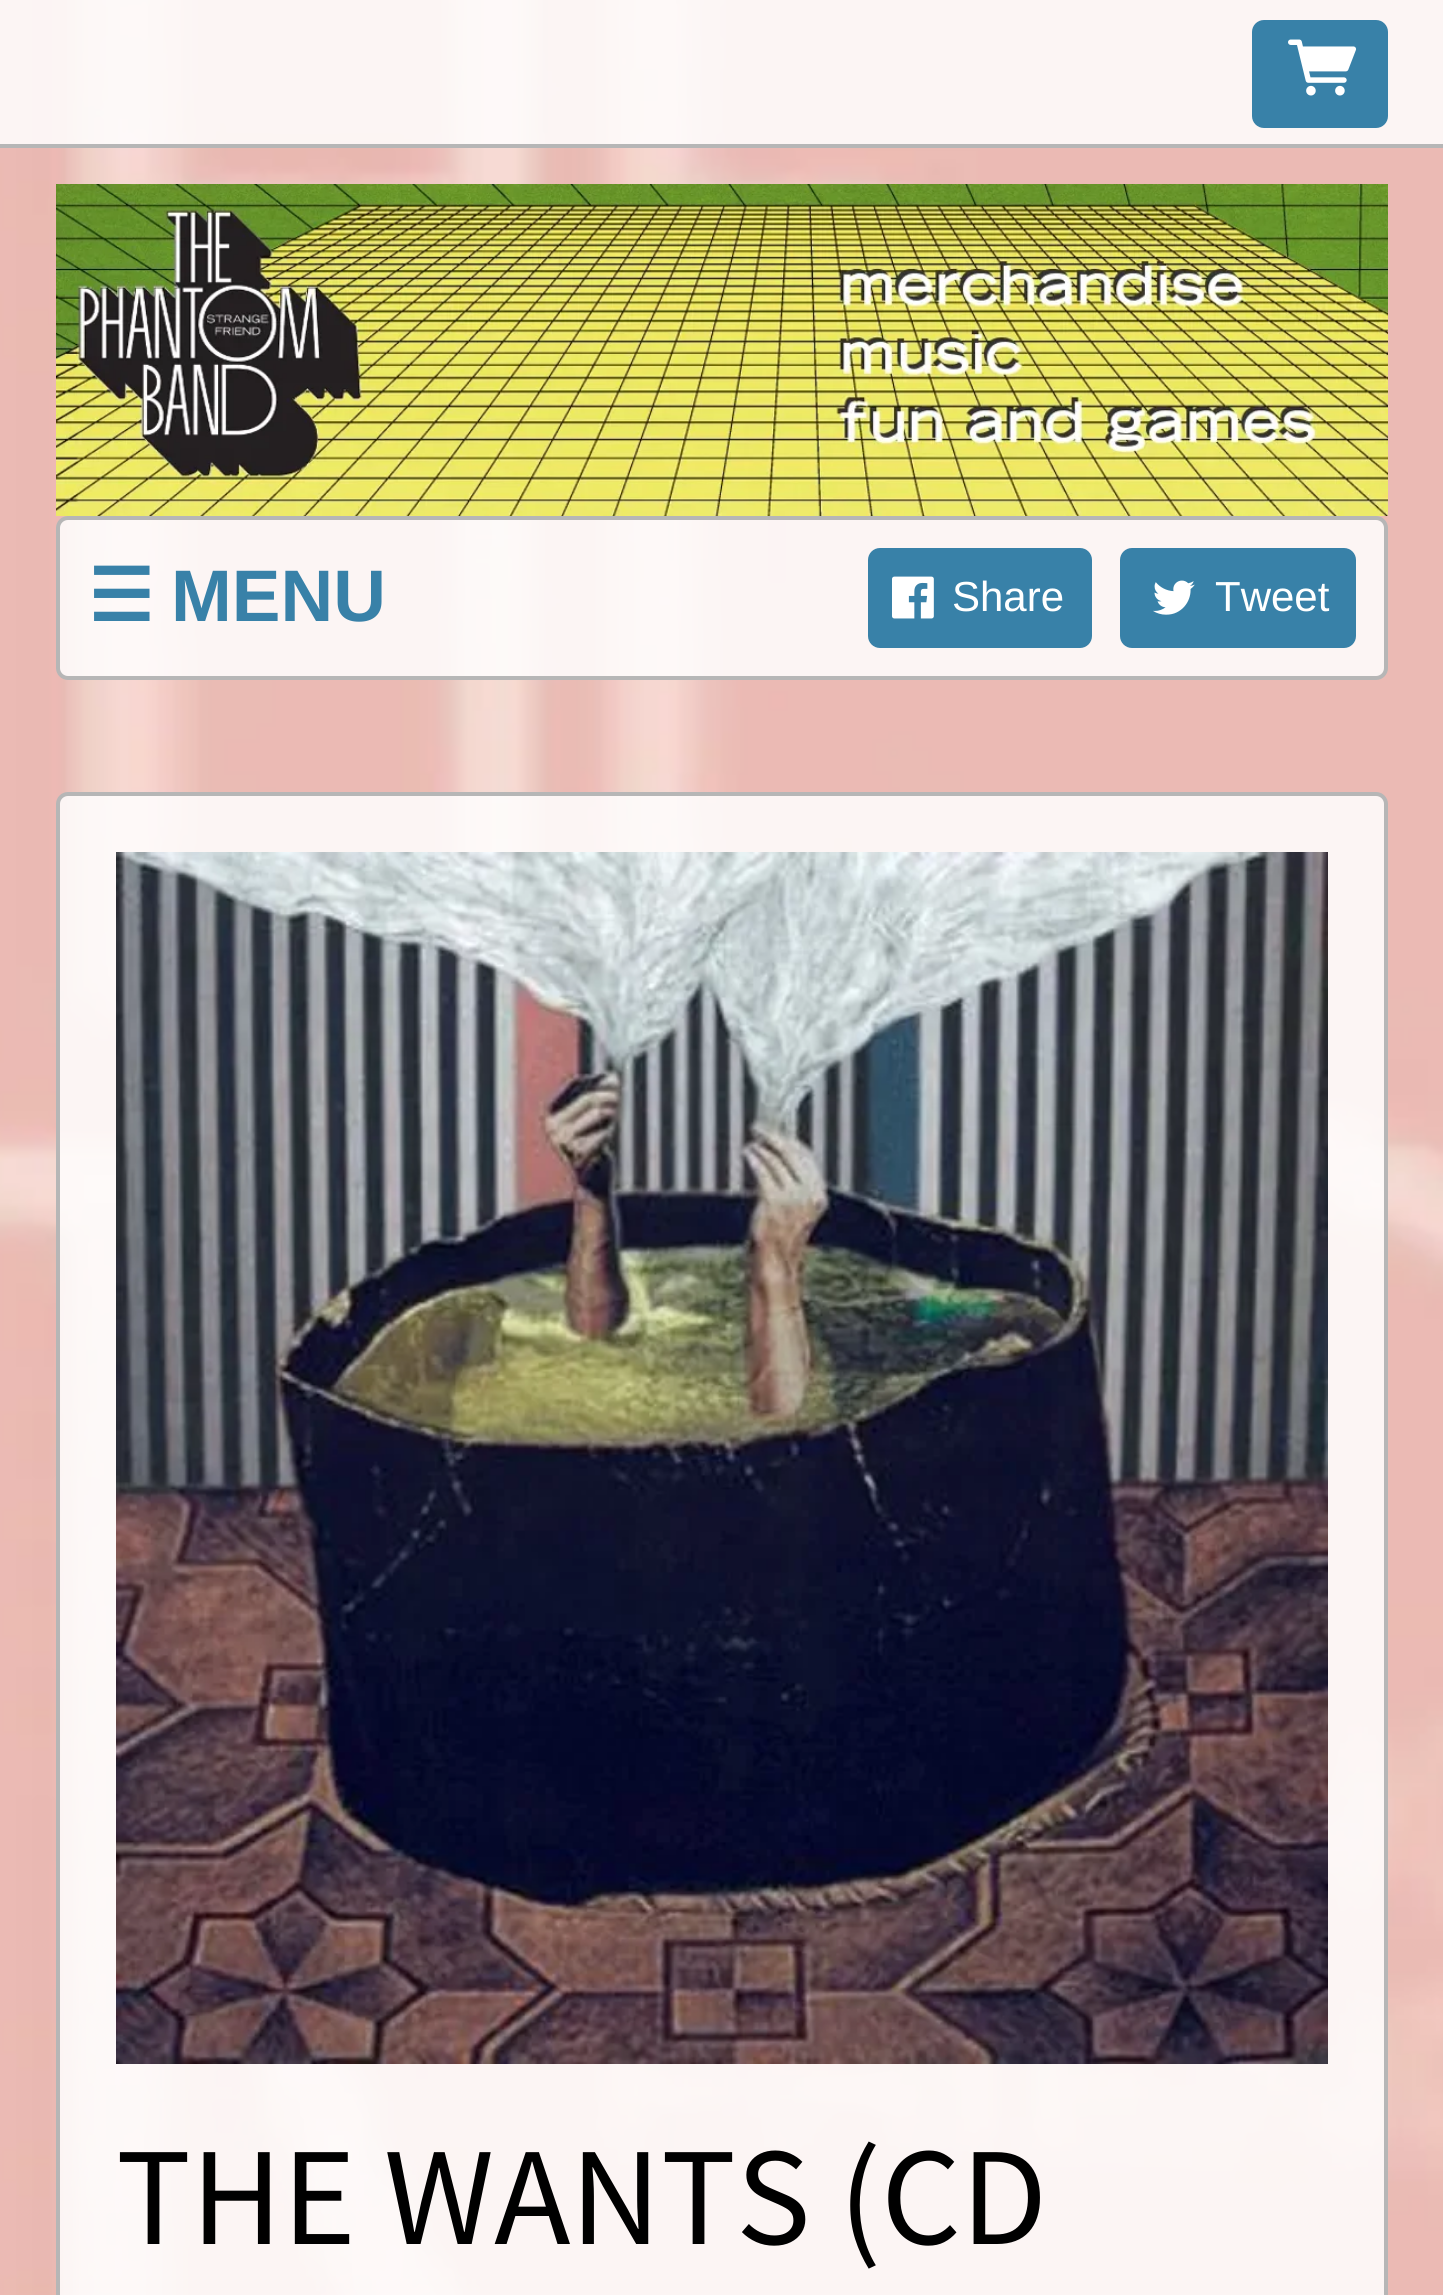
import math
import cairocffi as cairo

surface = cairo.ImageSurface(cairo.FORMAT_RGB24, 1443, 2295)
cr = cairo.Context(surface)
options = cairo.FontOptions()
options.set_hint_metrics(cairo.HINT_METRICS_OFF)
options.set_hint_style(cairo.HINT_STYLE_NONE)
cr.set_font_options(options)
cr.set_miter_limit(4)


def use_color(code):
    cr.set_source_rgb(*(v / 255 for v in bytes.fromhex(code[-6:])))


def round_rect(x, y, w, h, r):
    cr.new_sub_path()
    for i, (u, v) in enumerate([(x + w - r, y + h - r), (x + r, y + h - r), (x + r, y + r), (x + w - r, y + r)]):
        cr.arc(u, v, r, i * math.pi / 2, (i + 1) * math.pi / 2)
    cr.close_path()


def picture(path, x, y, w, h):
    cr.save()
    cr.set_source_surface(cairo.ImageSurface.create_from_png(path), x, y)
    cr.rectangle(x, y, w, h)
    cr.fill()
    cr.restore()


use_color("#ffffff")
cr.paint()
picture("img1.png", 0, 0, 1443, 2295)
cr.set_source_rgba(1, 1, 1, 0.85)
cr.rectangle(0, 0, 1443, 144)
cr.fill()
use_color("#b6b6b6")
cr.rectangle(0, 144, 1443, 4)
cr.fill()
use_color("#3881a8")
round_rect(1252, 20, 136, 108, 12)
cr.fill()
picture("img2.png", 1288, 39, 69, 57)
picture("img3.png", 56, 184, 1332, 332)
cr.set_source_rgba(1, 1, 1, 0.85)
round_rect(58, 518, 1328, 160, 10)
cr.fill_preserve()
use_color("#b6b6b6")
cr.set_line_width(4)
cr.stroke()
cr.select_font_face("DejaVu Sans", cairo.FONT_SLANT_NORMAL, cairo.FONT_WEIGHT_BOLD)
cr.set_font_size(73)
use_color("#3881a8")
cr.move_to(88, 621)
cr.show_text("☰")
cr.select_font_face("Liberation Sans", cairo.FONT_SLANT_NORMAL, cairo.FONT_WEIGHT_BOLD)
cr.move_to(171, 621)
cr.show_text("MENU")
round_rect(868, 548, 224, 100, 12)
cr.fill()
picture("img4.png", 892, 576, 42, 43)
cr.select_font_face("Liberation Sans")
cr.set_font_size(42)
use_color("#ffffff")
cr.move_to(952, 611)
cr.show_text("Share")
use_color("#3881a8")
round_rect(1120, 548, 236, 100, 12)
cr.fill()
picture("img5.png", 1153, 580, 42, 35)
use_color("#ffffff")
cr.move_to(1215, 611)
cr.show_text("Tweet")
cr.set_source_rgba(1, 1, 1, 0.85)
round_rect(58, 794, 1328, 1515, 10)
cr.fill_preserve()
use_color("#b6b6b6")
cr.stroke()
picture("img6.png", 116, 852, 1212, 1212)
cr.select_font_face("Source Sans Pro")
cr.set_font_size(140)
use_color("#000000")
cr.move_to(116, 2244)
cr.show_text("THE WANTS (CD")
surface.write_to_png("result.png")
